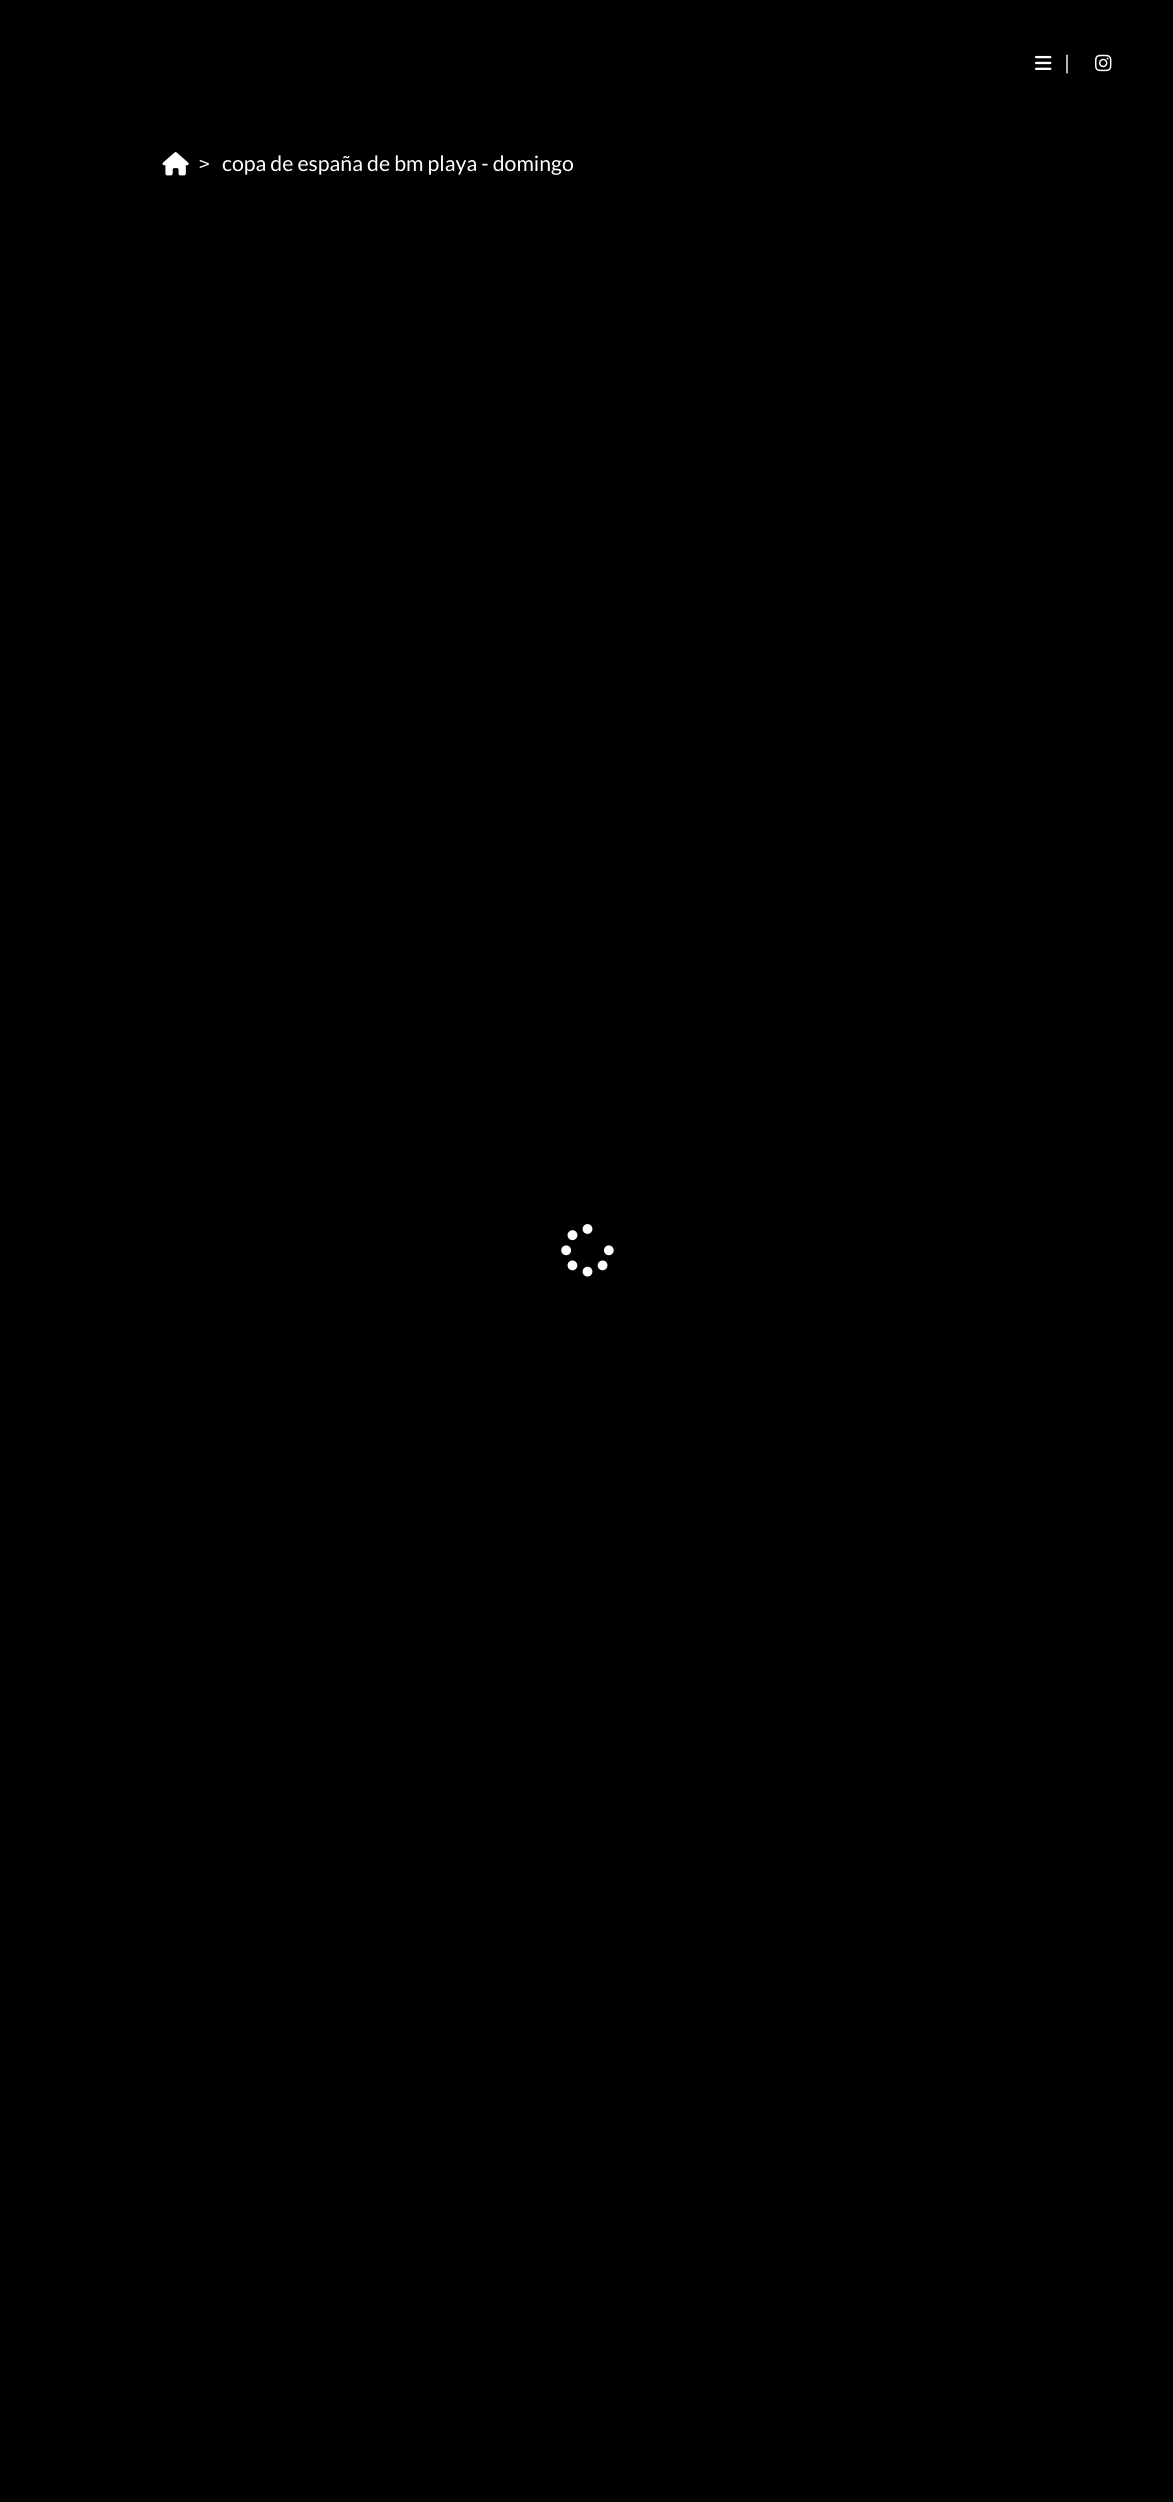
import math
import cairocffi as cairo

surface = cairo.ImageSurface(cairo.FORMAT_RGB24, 1173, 2502)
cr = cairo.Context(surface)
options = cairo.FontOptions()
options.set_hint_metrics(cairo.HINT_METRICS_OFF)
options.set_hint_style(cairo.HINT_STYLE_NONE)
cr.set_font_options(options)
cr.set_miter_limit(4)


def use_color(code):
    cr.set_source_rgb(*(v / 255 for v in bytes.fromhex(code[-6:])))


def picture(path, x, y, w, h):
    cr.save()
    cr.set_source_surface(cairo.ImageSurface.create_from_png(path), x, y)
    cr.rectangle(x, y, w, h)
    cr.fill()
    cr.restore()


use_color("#000000")
cr.paint()
picture("img1.png", 1035, 55, 17, 15)
cr.select_font_face("Lato")
cr.set_font_size(20)
use_color("#ffffff")
cr.move_to(1064, 70)
cr.show_text("|")
picture("img2.png", 1095, 54, 17, 18)
picture("img3.png", 162, 152, 27, 24)
cr.select_font_face("Source Sans Pro")
cr.set_font_size(21.25)
cr.move_to(199, 171)
cr.show_text(">")
cr.select_font_face("Lato")
cr.move_to(222, 171)
cr.show_text("copa de españa de bm playa - domingo")
picture("img4.png", 561, 1224, 53, 53)
surface.write_to_png("result.png")
